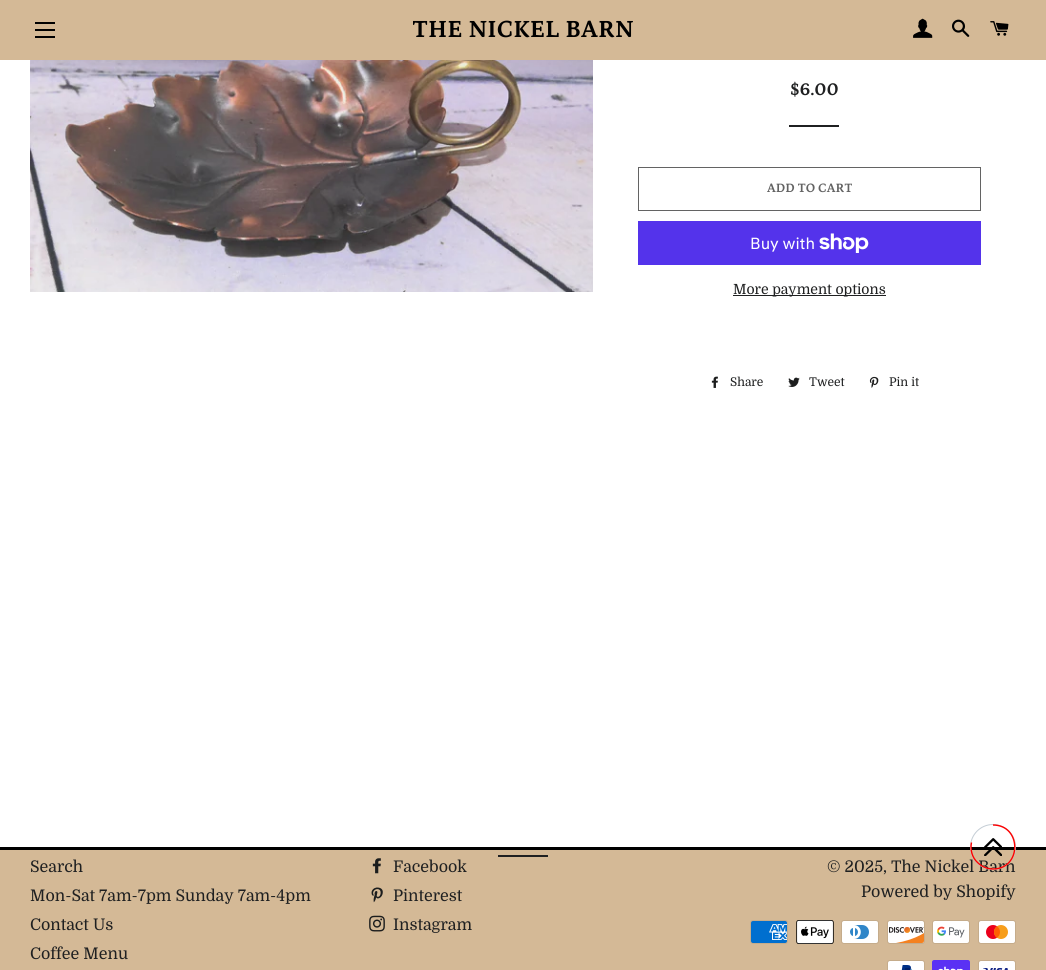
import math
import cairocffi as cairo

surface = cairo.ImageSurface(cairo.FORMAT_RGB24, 1046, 970)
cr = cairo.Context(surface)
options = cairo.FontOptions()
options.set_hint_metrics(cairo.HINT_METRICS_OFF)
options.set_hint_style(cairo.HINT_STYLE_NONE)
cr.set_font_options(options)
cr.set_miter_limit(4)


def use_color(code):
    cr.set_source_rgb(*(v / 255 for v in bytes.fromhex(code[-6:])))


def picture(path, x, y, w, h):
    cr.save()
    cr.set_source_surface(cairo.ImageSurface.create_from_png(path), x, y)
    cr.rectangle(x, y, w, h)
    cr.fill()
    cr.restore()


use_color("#ffffff")
cr.paint()
use_color("#d4b996")
cr.rectangle(0, 0, 1046, 60)
cr.fill()
use_color("#000000")
cr.rectangle(35, 22, 20, 2)
cr.fill()
cr.rectangle(35, 29, 20, 2)
cr.fill()
cr.rectangle(35, 36, 20, 2)
cr.fill()
cr.select_font_face("Petrona", cairo.FONT_SLANT_NORMAL, cairo.FONT_WEIGHT_BOLD)
cr.set_font_size(25)
cr.move_to(412, 37)
cr.show_text("THE NICKEL BARN")
picture("img1.png", 913, 18, 20, 20)
picture("img2.png", 952, 19, 18, 18)
picture("img3.png", 990, 21, 19, 15)
picture("img4.png", 30, 60, 563, 232)
cr.set_font_size(18)
use_color("#1f2021")
cr.move_to(790, 95)
cr.show_text("$6.00")
cr.rectangle(789, 125, 50, 2)
cr.fill()
cr.rectangle(638.5, 167.5, 342, 43)
use_color("#636363")
cr.set_line_width(1)
cr.stroke()
cr.set_font_size(13)
cr.move_to(767, 192)
cr.show_text("ADD TO CART")
use_color("#5433eb")
cr.rectangle(638, 221, 343, 44)
cr.fill()
cr.select_font_face("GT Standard")
cr.set_font_size(16)
use_color("#ffffff")
cr.move_to(750, 249)
cr.show_text("Buy with")
picture("img5.png", 819, 233, 50, 20)
use_color("#1f2021")
cr.rectangle(733, 295, 153, 1)
cr.fill()
cr.select_font_face("Domine")
cr.set_font_size(14)
cr.move_to(733, 294)
cr.show_text("More payment options")
picture("img6.png", 711, 376, 7, 12)
cr.set_font_size(12)
cr.move_to(730, 386)
cr.show_text("Share")
picture("img7.png", 788, 377, 12, 10)
cr.move_to(809, 386)
cr.show_text("Tweet")
picture("img8.png", 869, 376, 10, 12)
cr.move_to(889, 386)
cr.show_text("Pin it")
use_color("#d4b996")
cr.rectangle(0, 850, 1046, 120)
cr.fill()
use_color("#1f2021")
cr.rectangle(498, 855, 50, 2)
cr.fill()
use_color("#000000")
cr.rectangle(0, 847, 1046, 3)
cr.fill()
cr.set_font_size(16)
use_color("#1f2021")
cr.move_to(30, 872)
cr.show_text("Search")
cr.move_to(30, 901)
cr.show_text("Mon-Sat 7am-7pm Sunday 7am-4pm")
cr.move_to(30, 930)
cr.show_text("Contact Us")
cr.move_to(30, 959)
cr.show_text("Coffee Menu")
picture("img9.png", 372, 858, 9, 16)
cr.move_to(393, 872)
cr.show_text("Facebook")
picture("img10.png", 371, 887, 12, 16)
cr.move_to(393, 901)
cr.show_text("Pinterest")
picture("img11.png", 369, 915, 16, 17)
cr.move_to(393, 930)
cr.show_text("Instagram")
cr.move_to(827, 872)
cr.show_text("© 2025, The Nickel Barn")
cr.move_to(861, 897)
cr.show_text("Powered by Shopify")
picture("img12.png", 750, 920, 38, 24)
picture("img13.png", 796, 920, 38, 24)
picture("img14.png", 841, 920, 38, 24)
picture("img15.png", 887, 920, 38, 24)
picture("img16.png", 932, 920, 38, 24)
picture("img17.png", 978, 920, 38, 24)
picture("img18.png", 887, 960, 38, 10)
picture("img19.png", 932, 960, 38, 10)
picture("img20.png", 978, 960, 38, 10)
cr.arc(993, 847, 22.5, 0, 2 * math.pi)
use_color("#c4cdd5")
cr.stroke()
picture("img21.png", 984, 838, 18, 18)
cr.new_path()
cr.move_to(993, 825)
cr.curve_to(1022, 825, 1022, 869, 993, 869)
cr.curve_to(987, 869, 981.5, 866.5, 977.5, 862.5)
cr.curve_to(972, 857.5, 970, 849.5, 971.5, 842.5)
use_color("#ff0000")
cr.set_line_width(1.4)
cr.stroke()
surface.write_to_png("result.png")
